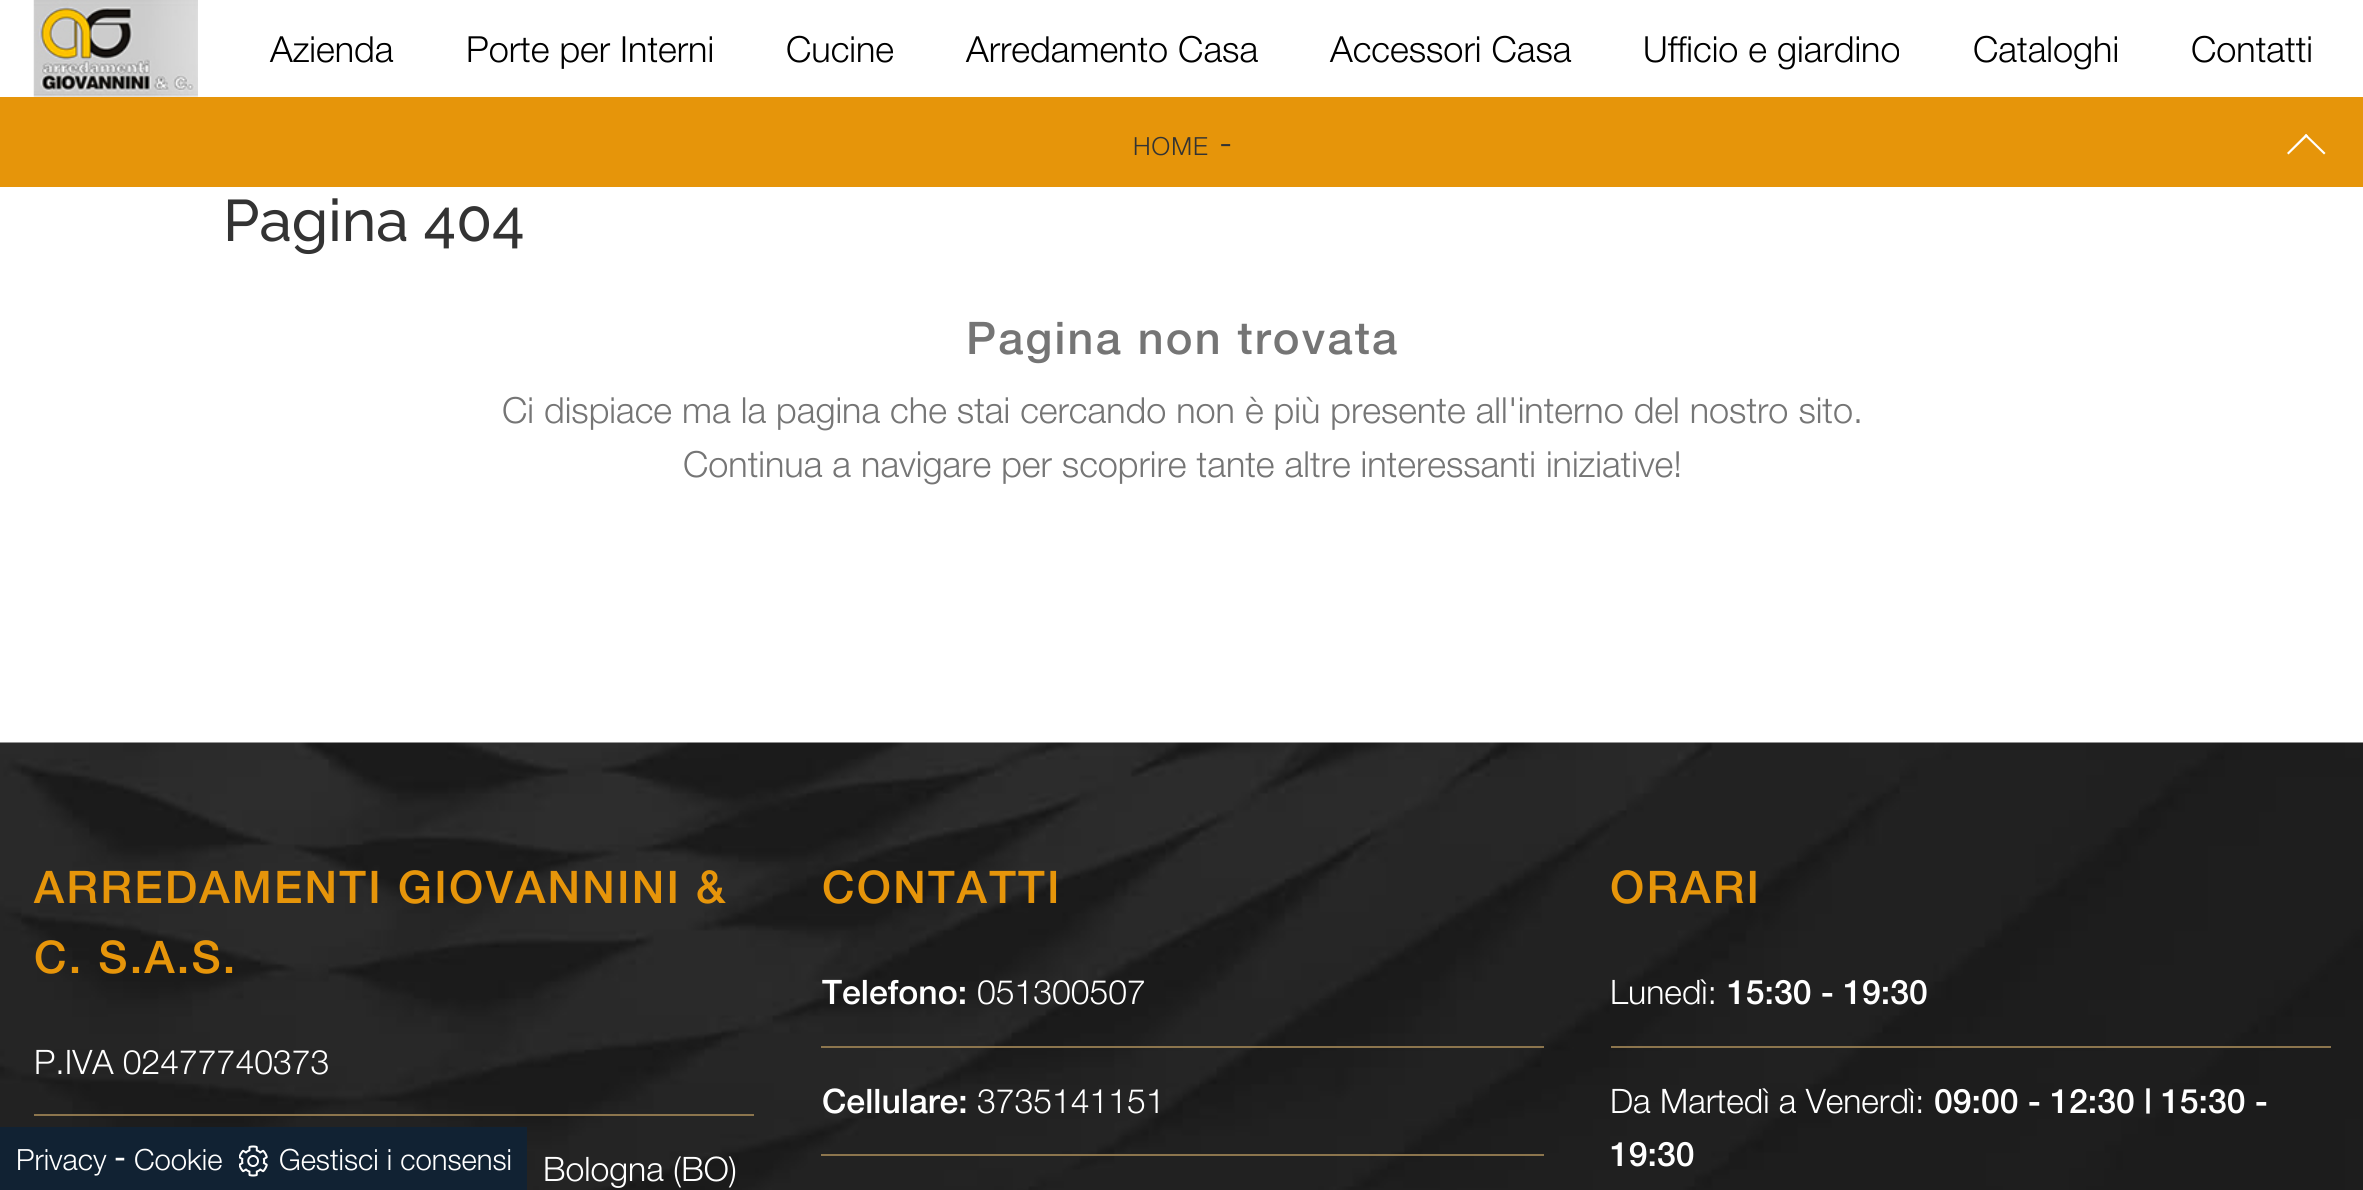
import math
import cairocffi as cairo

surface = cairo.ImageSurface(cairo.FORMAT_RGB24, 2363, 1190)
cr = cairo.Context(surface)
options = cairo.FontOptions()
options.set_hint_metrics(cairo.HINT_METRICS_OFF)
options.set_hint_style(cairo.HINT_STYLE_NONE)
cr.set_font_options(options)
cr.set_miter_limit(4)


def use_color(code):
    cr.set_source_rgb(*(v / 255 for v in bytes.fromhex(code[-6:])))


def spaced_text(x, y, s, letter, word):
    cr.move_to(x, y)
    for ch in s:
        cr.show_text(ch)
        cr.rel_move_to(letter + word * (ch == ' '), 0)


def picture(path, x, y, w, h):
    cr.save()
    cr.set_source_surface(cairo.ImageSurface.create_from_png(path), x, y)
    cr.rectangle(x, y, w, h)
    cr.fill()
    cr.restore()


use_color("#ffffff")
cr.paint()
picture("img1.png", 33, 0, 165, 97)
cr.select_font_face("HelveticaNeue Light")
cr.set_font_size(36)
use_color("#000000")
cr.move_to(270, 62)
cr.show_text("Azienda")
cr.move_to(466, 62)
cr.show_text("Porte per Interni")
cr.move_to(786, 62)
cr.show_text("Cucine")
cr.move_to(966, 62)
cr.show_text("Arredamento Casa")
cr.move_to(1330, 62)
cr.show_text("Accessori Casa")
cr.move_to(1643, 62)
cr.show_text("Ufficio e giardino")
cr.move_to(1973, 62)
cr.show_text("Cataloghi")
cr.move_to(2191, 62)
cr.show_text("Contatti")
use_color("#e6950a")
cr.rectangle(0, 97, 2363, 90)
cr.fill()
cr.set_font_size(25)
use_color("#333333")
spaced_text(1133, 155, "HOME", 1, 0)
cr.set_font_size(36)
cr.move_to(1219, 155)
cr.show_text("-")
use_color("#ffffff")
cr.new_path()
cr.move_to(2306, 134)
cr.line_to(2325.5, 153)
cr.line_to(2324, 154.5)
cr.line_to(2304.5, 135.5)
cr.close_path()
cr.fill()
cr.new_path()
cr.move_to(2306, 134)
cr.line_to(2308, 135.5)
cr.line_to(2288.5, 154.5)
cr.line_to(2287, 153)
cr.close_path()
cr.fill()
cr.select_font_face("Raleway Medium")
cr.set_font_size(58.5)
use_color("#333333")
cr.move_to(223, 241)
cr.show_text("Pagina 404")
cr.select_font_face("HelveticaNeue Medium")
cr.set_font_size(45)
use_color("#757575")
spaced_text(966, 354, "Pagina non trovata", 2.25, 0)
cr.select_font_face("HelveticaNeue Light")
cr.set_font_size(36)
cr.move_to(502, 423)
cr.show_text("Ci dispiace ma la pagina che stai cercando non è più presente all'interno del nostro sito.")
cr.move_to(683, 477)
cr.show_text("Continua a navigare per scoprire tante altre interessanti iniziative!")
picture("img2.png", 0, 742, 2363, 448)
cr.select_font_face("HelveticaNeue Medium")
cr.set_font_size(45)
use_color("#e6950a")
spaced_text(34, 903, "ARREDAMENTI GIOVANNINI &", 2.25, 0)
spaced_text(34, 973, "C. S.A.S.", 2.25, 0)
use_color("#8c754d")
cr.rectangle(34, 1114, 720, 2)
cr.fill()
cr.select_font_face("HelveticaNeue Light")
cr.set_font_size(33.75)
use_color("#ffffff")
cr.move_to(34, 1074)
cr.show_text("P.IVA 02477740373")
cr.move_to(543, 1181)
cr.show_text("Bologna (BO)")
cr.select_font_face("HelveticaNeue Medium")
cr.set_font_size(45)
use_color("#e6950a")
spaced_text(822, 903, "CONTATTI", 2.25, 0)
use_color("#8c754d")
cr.rectangle(821, 1046, 723, 2)
cr.fill()
cr.set_font_size(33.75)
use_color("#ffffff")
cr.move_to(822, 1004)
cr.show_text("Telefono:")
cr.select_font_face("HelveticaNeue Light")
cr.move_to(977, 1004)
cr.show_text("051300507")
use_color("#8c754d")
cr.rectangle(821, 1154, 723, 2)
cr.fill()
cr.select_font_face("HelveticaNeue Medium")
use_color("#ffffff")
cr.move_to(822, 1113)
cr.show_text("Cellulare:")
cr.select_font_face("HelveticaNeue Light")
cr.move_to(977, 1113)
cr.show_text("3735141151")
cr.select_font_face("HelveticaNeue Medium")
cr.set_font_size(45)
use_color("#e6950a")
spaced_text(1610, 903, "ORARI", 2.25, 0)
use_color("#8c754d")
cr.rectangle(1611, 1046, 720, 2)
cr.fill()
cr.select_font_face("HelveticaNeue Light")
cr.set_font_size(33.75)
use_color("#ffffff")
cr.move_to(1610, 1004)
cr.show_text("Lunedì:")
cr.select_font_face("HelveticaNeue Medium")
cr.move_to(1727, 1004)
cr.show_text("15:30 - 19:30")
cr.select_font_face("HelveticaNeue Light")
cr.move_to(1610, 1113)
cr.show_text("Da Martedì a Venerdì:")
cr.select_font_face("HelveticaNeue Medium")
cr.move_to(1934, 1113)
cr.show_text("09:00 - 12:30 | 15:30 -")
cr.move_to(1610, 1166)
cr.show_text("19:30")
use_color("#112233")
cr.rectangle(0, 1127, 527, 63)
cr.fill()
cr.select_font_face("HelveticaNeue Light")
cr.set_font_size(29.25)
use_color("#ffffff")
cr.move_to(16, 1170)
cr.show_text("Privacy")
cr.select_font_face("Roboto")
cr.set_font_size(36)
cr.move_to(115, 1170)
cr.show_text("-")
cr.select_font_face("HelveticaNeue Light")
cr.set_font_size(29.25)
cr.move_to(134, 1170)
cr.show_text("Cookie")
picture("img3.png", 239, 1145, 29, 32)
cr.move_to(279, 1170)
cr.show_text("Gestisci i consensi")
surface.write_to_png("result.png")
